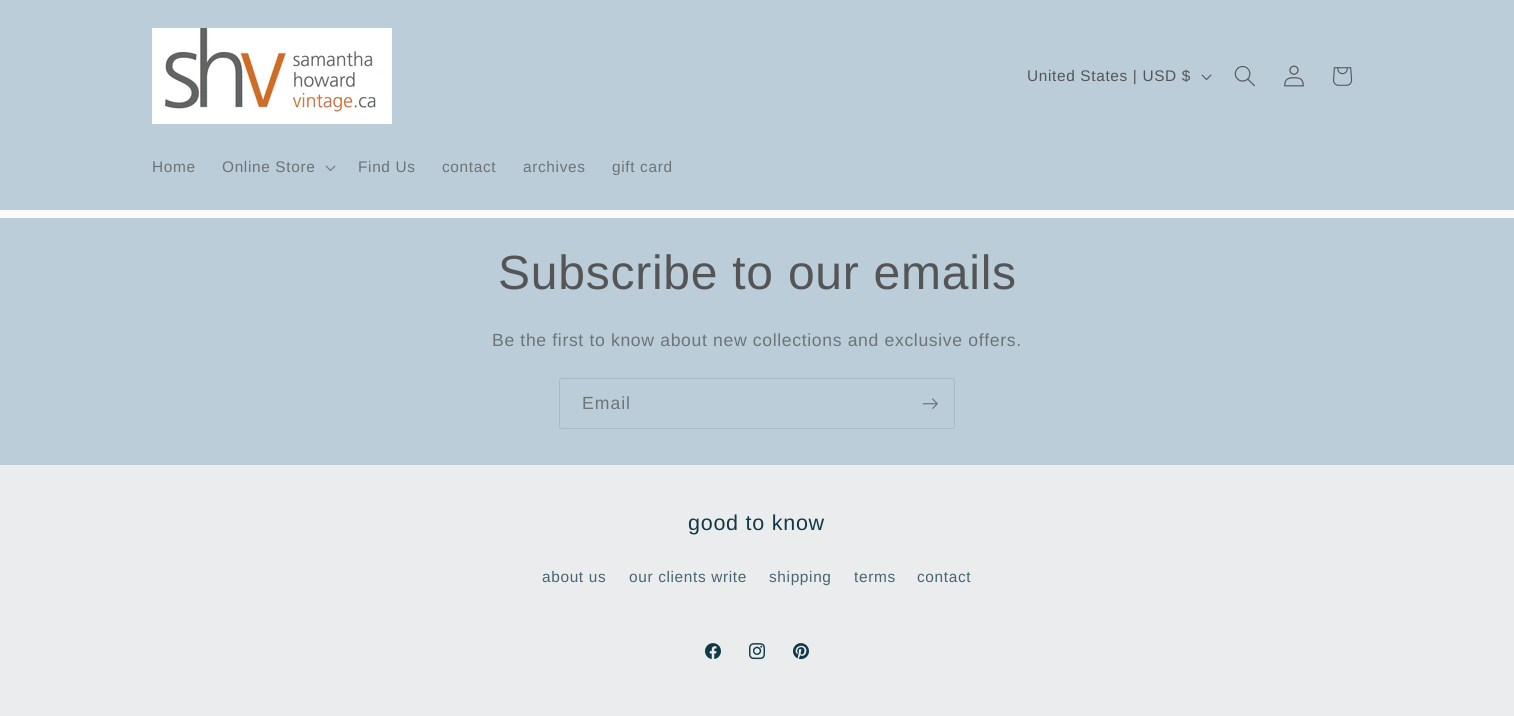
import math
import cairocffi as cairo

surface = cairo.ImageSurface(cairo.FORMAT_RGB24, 1514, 716)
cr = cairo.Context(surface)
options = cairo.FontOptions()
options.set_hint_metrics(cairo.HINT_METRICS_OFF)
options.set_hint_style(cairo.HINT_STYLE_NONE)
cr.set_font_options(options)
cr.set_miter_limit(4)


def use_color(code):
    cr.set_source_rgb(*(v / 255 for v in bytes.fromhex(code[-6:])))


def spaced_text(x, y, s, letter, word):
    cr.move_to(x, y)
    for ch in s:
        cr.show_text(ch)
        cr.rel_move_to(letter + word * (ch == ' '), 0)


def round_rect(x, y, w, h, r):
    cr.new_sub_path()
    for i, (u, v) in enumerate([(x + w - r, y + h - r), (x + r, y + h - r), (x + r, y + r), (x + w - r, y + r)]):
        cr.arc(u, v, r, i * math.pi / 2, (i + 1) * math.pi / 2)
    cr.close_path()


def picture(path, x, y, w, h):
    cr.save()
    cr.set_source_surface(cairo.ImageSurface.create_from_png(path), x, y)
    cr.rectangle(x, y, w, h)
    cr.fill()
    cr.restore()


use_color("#fcfcfc")
cr.paint()
use_color("#bacdd9")
cr.rectangle(0, 0, 1514, 210)
cr.fill()
picture("img1.png", 152, 28, 240, 96)
cr.select_font_face("Liberation Sans")
cr.set_font_size(15.4)
use_color("#555555")
spaced_text(1027, 81, "United States | USD $", 0.65, 0)
picture("img2.png", 1201, 74, 11, 6)
picture("img3.png", 1234, 66, 21, 21)
picture("img4.png", 1284, 65, 20, 22)
picture("img5.png", 1333, 67, 20, 19)
use_color("#6e7376")
spaced_text(152, 172, "Home", 0.65, 0)
spaced_text(222, 172, "Online Store", 0.65, 0)
picture("img6.png", 325, 165, 11, 6)
spaced_text(358, 172, "Find Us", 0.65, 0)
spaced_text(442, 172, "contact", 0.65, 0)
spaced_text(523, 172, "archives", 0.65, 0)
spaced_text(612, 172, "gift card", 0.65, 0)
use_color("#bacdd9")
cr.rectangle(0, 218, 1514, 247)
cr.fill()
cr.set_font_size(48)
use_color("#555555")
spaced_text(498, 289, "Subscribe to our emails", 0.75, 0)
cr.set_font_size(17.6)
use_color("#6e7376")
spaced_text(492, 346, "Be the first to know about new collections and exclusive offers.", 0.65, 0)
round_rect(559.5, 378.5, 395, 50, 2.5)
cr.set_source_rgba(0.333, 0.333, 0.333, 0.15)
cr.set_line_width(1)
cr.stroke()
use_color("#6e7376")
spaced_text(582, 409, "Email", 1, 0)
picture("img7.png", 922, 398, 16, 11)
use_color("#ebeced")
cr.rectangle(0, 465, 1514, 251)
cr.fill()
cr.set_font_size(21.5)
use_color("#103948")
spaced_text(688, 530, "good to know", 0.75, 0)
cr.set_font_size(15.4)
use_color("#476671")
spaced_text(542, 582, "about us", 0.65, 0)
spaced_text(629, 582, "our clients write", 0.65, 0)
spaced_text(769, 582, "shipping", 0.65, 0)
spaced_text(854, 582, "terms", 0.65, 0)
spaced_text(917, 582, "contact", 0.65, 0)
picture("img8.png", 705, 643, 16, 16)
picture("img9.png", 749, 643, 16, 17)
picture("img10.png", 793, 643, 16, 17)
surface.write_to_png("result.png")
